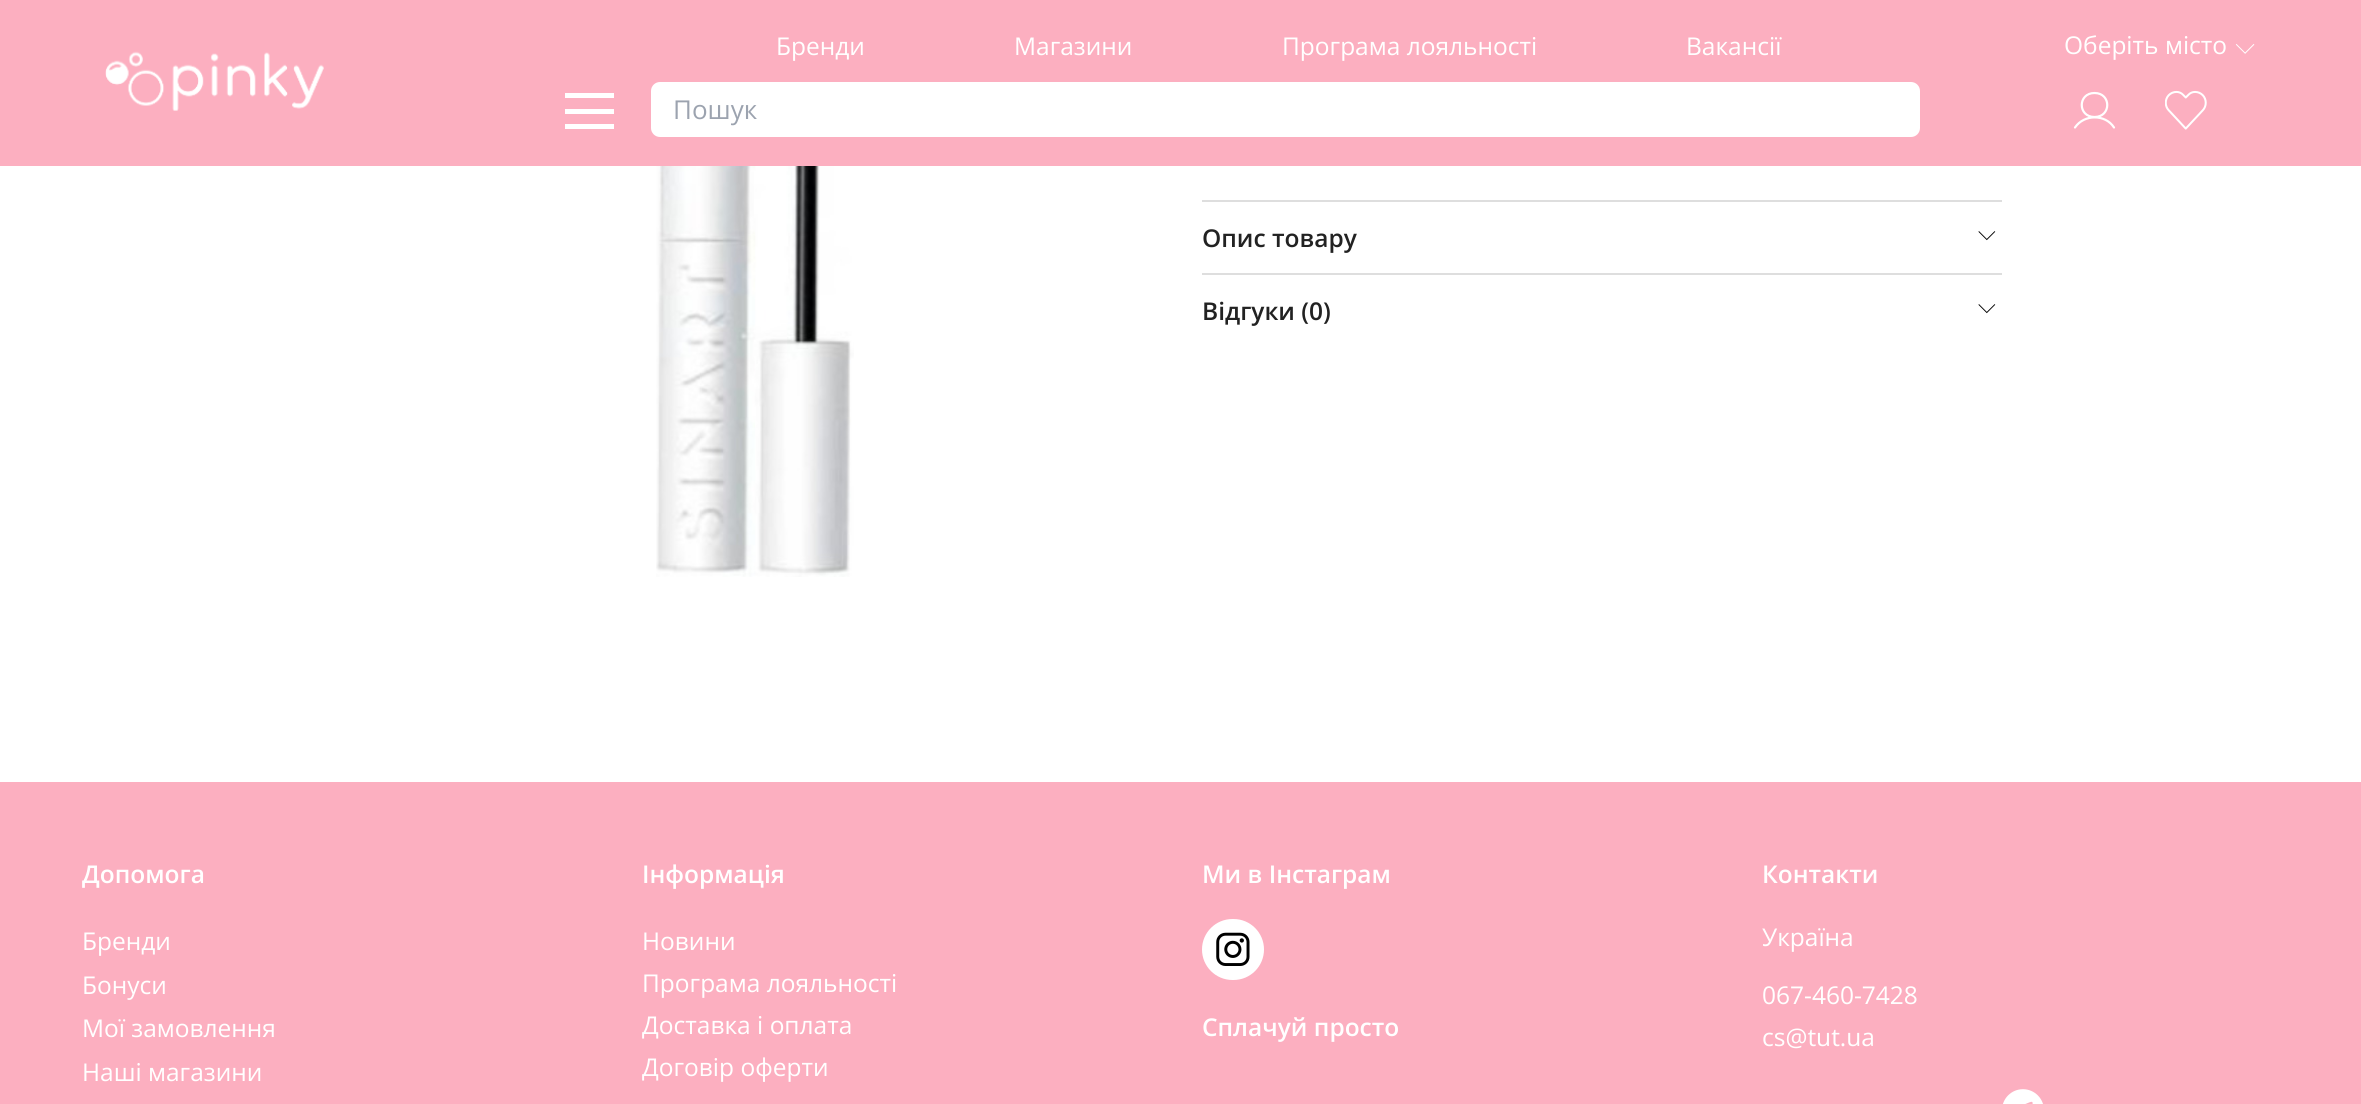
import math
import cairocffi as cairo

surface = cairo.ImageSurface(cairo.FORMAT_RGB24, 2361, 1104)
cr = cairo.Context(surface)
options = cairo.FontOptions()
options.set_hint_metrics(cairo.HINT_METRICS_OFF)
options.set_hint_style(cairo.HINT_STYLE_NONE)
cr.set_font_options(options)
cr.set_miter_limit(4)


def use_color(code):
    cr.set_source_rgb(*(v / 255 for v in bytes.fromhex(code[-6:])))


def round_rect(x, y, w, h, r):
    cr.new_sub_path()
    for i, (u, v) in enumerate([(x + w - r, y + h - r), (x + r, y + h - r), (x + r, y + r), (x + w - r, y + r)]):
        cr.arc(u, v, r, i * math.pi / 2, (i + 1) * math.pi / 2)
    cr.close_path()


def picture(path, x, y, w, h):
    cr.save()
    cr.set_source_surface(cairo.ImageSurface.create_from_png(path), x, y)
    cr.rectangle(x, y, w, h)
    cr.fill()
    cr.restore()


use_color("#ffffff")
cr.paint()
use_color("#fcafc0")
cr.rectangle(0, 0, 2361, 166)
cr.fill()
picture("img1.png", 105, 51, 219, 60)
use_color("#ffffff")
cr.rectangle(565, 109, 49, 5)
cr.fill()
cr.rectangle(565, 93, 49, 5)
cr.fill()
cr.rectangle(565, 124, 49, 5)
cr.fill()
cr.select_font_face("Open Sans")
cr.set_font_size(24.5)
cr.move_to(776, 55)
cr.show_text("Бренди")
cr.move_to(1014, 55)
cr.show_text("Магазини")
cr.move_to(1282, 55)
cr.show_text("Програма лояльності")
cr.move_to(1686, 55)
cr.show_text("Вакансії")
round_rect(651, 82, 1269, 55, 9)
cr.fill()
cr.set_font_size(26)
use_color("#9ca3af")
cr.move_to(673, 119)
cr.show_text("Пошук")
cr.set_font_size(24.5)
use_color("#ffffff")
cr.move_to(2064, 54)
cr.show_text("Оберіть місто")
cr.select_font_face("Liberation Serif")
cr.set_font_size(22)
cr.save()
cr.translate(2242, 57)
cr.rotate(-45 * math.pi / 180)
cr.move_to(0, 0)
cr.show_text("∟")
cr.restore()
cr.new_path()
cr.move_to(2094.5, 117)
cr.curve_to(2111.5, 117, 2111.5, 93, 2094.5, 93)
cr.curve_to(2077.5, 93, 2077.5, 117, 2094.5, 117)
cr.close_path()
cr.set_line_width(2.2)
cr.stroke()
cr.new_path()
cr.move_to(2075, 127.5)
cr.curve_to(2084, 114, 2105.5, 114, 2114, 127.5)
cr.set_line_cap(cairo.LINE_CAP_ROUND)
cr.set_line_join(cairo.LINE_JOIN_ROUND)
cr.stroke()
picture("img2.png", 2165, 90, 42, 40)
picture("img3.png", 656, 166, 198, 411)
use_color("#dedede")
cr.rectangle(1202, 200, 800, 2)
cr.fill()
cr.select_font_face("Open Sans SemiBold")
cr.set_font_size(24.5)
use_color("#222222")
cr.move_to(1202, 247)
cr.show_text("Опис товару")
cr.select_font_face("Liberation Serif", cairo.FONT_SLANT_NORMAL, cairo.FONT_WEIGHT_BOLD)
cr.set_font_size(20)
use_color("#000000")
cr.save()
cr.translate(1984, 243)
cr.rotate(-45 * math.pi / 180)
cr.move_to(0, 0)
cr.show_text("∟")
cr.restore()
use_color("#dedede")
cr.rectangle(1202, 273, 800, 2)
cr.fill()
cr.select_font_face("Open Sans SemiBold")
cr.set_font_size(24.5)
use_color("#222222")
cr.move_to(1202, 320)
cr.show_text("Відгуки (0)")
cr.select_font_face("Liberation Serif", cairo.FONT_SLANT_NORMAL, cairo.FONT_WEIGHT_BOLD)
cr.set_font_size(20)
use_color("#000000")
cr.save()
cr.translate(1984, 316)
cr.rotate(-45 * math.pi / 180)
cr.move_to(0, 0)
cr.show_text("∟")
cr.restore()
use_color("#fcafc0")
cr.rectangle(0, 782, 2361, 322)
cr.fill()
cr.select_font_face("Open Sans SemiBold")
cr.set_font_size(24.5)
use_color("#ffffff")
cr.move_to(82, 883)
cr.show_text("Допомога")
cr.select_font_face("Open Sans")
cr.move_to(82, 950)
cr.show_text("Бренди")
cr.move_to(82, 994)
cr.show_text("Бонуси")
cr.move_to(82, 1037)
cr.show_text("Мої замовлення")
cr.move_to(82, 1081)
cr.show_text("Наші магазини")
cr.select_font_face("Open Sans SemiBold")
cr.move_to(642, 883)
cr.show_text("Інформація")
cr.select_font_face("Open Sans")
cr.move_to(642, 950)
cr.show_text("Новини")
cr.move_to(642, 992)
cr.show_text("Програма лояльності")
cr.move_to(642, 1034)
cr.show_text("Доставка і оплата")
cr.move_to(642, 1076)
cr.show_text("Договір оферти")
cr.select_font_face("Open Sans SemiBold")
cr.move_to(1202, 883)
cr.show_text("Ми в Інстаграм")
round_rect(1202, 919, 62, 61, 30.5)
cr.fill()
picture("img4.png", 1216, 932, 34, 34)
cr.move_to(1202, 1036)
cr.show_text("Сплачуй просто")
cr.move_to(1762, 883)
cr.show_text("Контакти")
cr.select_font_face("Open Sans")
cr.move_to(1762, 946)
cr.show_text("Україна")
cr.move_to(1762, 1004)
cr.show_text("067-460-7428")
cr.move_to(1762, 1046)
cr.show_text("cs@tut.ua")
picture("img5.png", 2003, 1089, 40, 15)
surface.write_to_png("result.png")
